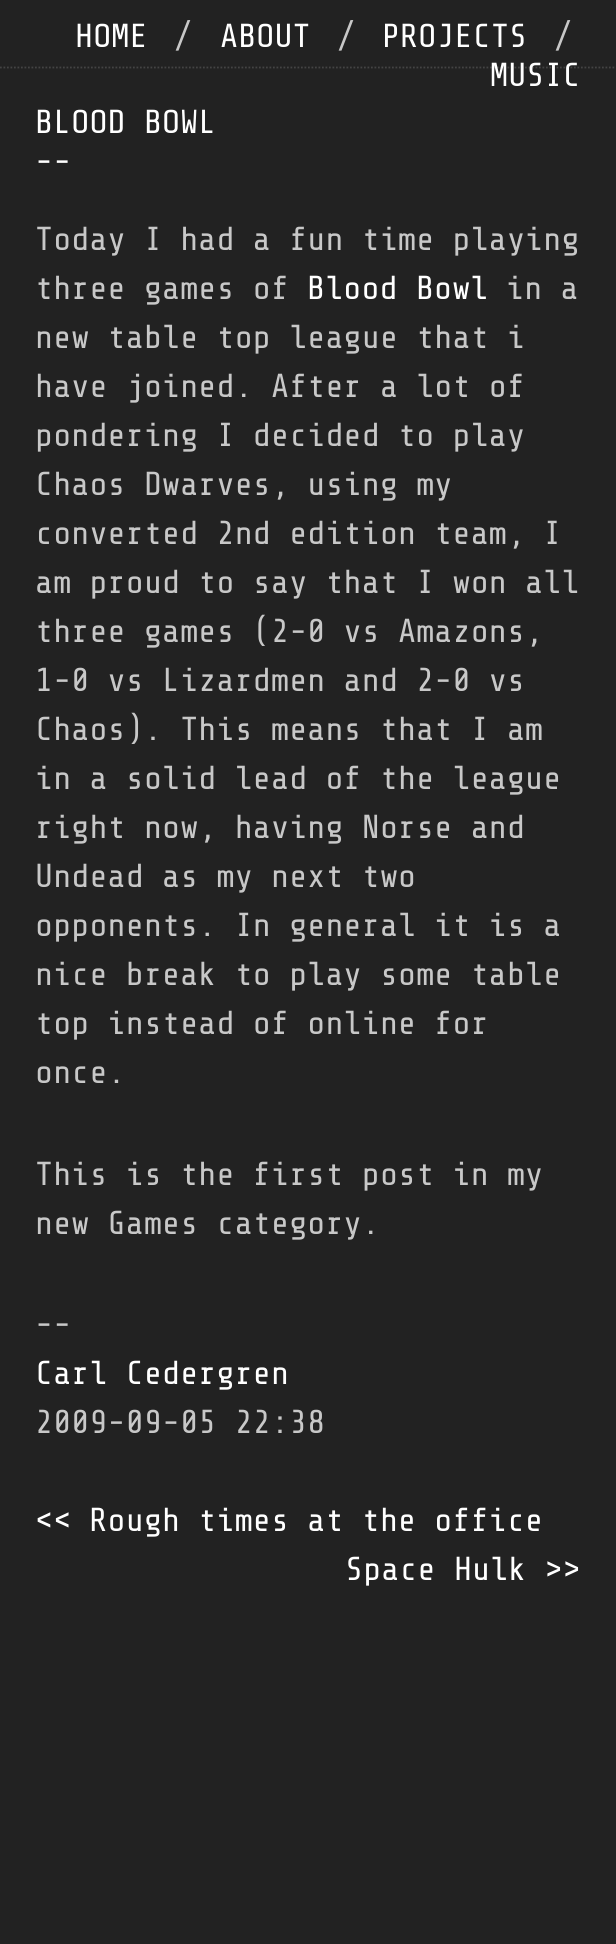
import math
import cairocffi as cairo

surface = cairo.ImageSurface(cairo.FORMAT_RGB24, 616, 1944)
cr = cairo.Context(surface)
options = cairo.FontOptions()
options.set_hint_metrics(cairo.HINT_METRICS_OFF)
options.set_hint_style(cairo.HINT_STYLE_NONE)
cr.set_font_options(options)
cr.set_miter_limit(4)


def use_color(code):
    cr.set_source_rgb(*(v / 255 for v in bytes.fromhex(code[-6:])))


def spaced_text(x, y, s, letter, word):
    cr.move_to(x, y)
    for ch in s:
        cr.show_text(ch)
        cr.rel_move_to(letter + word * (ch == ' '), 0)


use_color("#222222")
cr.paint()
cr.new_path()
cr.move_to(0, 67.5)
cr.line_to(616, 67.5)
use_color("#444444")
cr.set_line_width(1.8)
cr.set_dash([1.75, 1.75])
cr.stroke()
cr.select_font_face("Share Tech Mono")
cr.set_font_size(33.25)
use_color("#ffffff")
spaced_text(75, 47, "HOME", 0.2, 0)
use_color("#c8c8c8")
spaced_text(174, 47, "/", 0.2, 0)
use_color("#ffffff")
spaced_text(220, 47, "ABOUT", 0.2, 0)
use_color("#c8c8c8")
spaced_text(337, 47, "/", 0.2, 0)
use_color("#ffffff")
spaced_text(382, 47, "PROJECTS", 0.2, 0)
use_color("#c8c8c8")
spaced_text(554, 47, "/", 0.2, 0)
use_color("#ffffff")
spaced_text(490, 86, "MUSIC", 0.2, 0)
spaced_text(35, 133, "BLOOD BOWL", 0.2, 0)
spaced_text(35, 172, "--", 0.2, 0)
use_color("#c8c8c8")
spaced_text(35, 250, "Today I had a fun time playing", 0.2, 0)
spaced_text(35, 299, "three games of", 0.2, 0)
use_color("#ffffff")
spaced_text(307, 299, "Blood Bowl", 0.2, 0)
use_color("#c8c8c8")
spaced_text(506, 299, "in a", 0.2, 0)
spaced_text(35, 348, "new table top league that i", 0.2, 0)
spaced_text(35, 397, "have joined. After a lot of", 0.2, 0)
spaced_text(35, 446, "pondering I decided to play", 0.2, 0)
spaced_text(35, 495, "Chaos Dwarves, using my", 0.2, 0)
spaced_text(35, 544, "converted 2nd edition team, I", 0.2, 0)
spaced_text(35, 593, "am proud to say that I won all", 0.2, 0)
spaced_text(35, 642, "three games (2-0 vs Amazons,", 0.2, 0)
spaced_text(35, 691, "1-0 vs Lizardmen and 2-0 vs", 0.2, 0)
spaced_text(35, 740, "Chaos). This means that I am", 0.2, 0)
spaced_text(35, 789, "in a solid lead of the league", 0.2, 0)
spaced_text(35, 838, "right now, having Norse and", 0.2, 0)
spaced_text(35, 887, "Undead as my next two", 0.2, 0)
spaced_text(35, 936, "opponents. In general it is a", 0.2, 0)
spaced_text(35, 985, "nice break to play some table", 0.2, 0)
spaced_text(35, 1034, "top instead of online for", 0.2, 0)
spaced_text(35, 1083, "once.", 0.2, 0)
spaced_text(35, 1185, "This is the first post in my", 0.2, 0)
spaced_text(35, 1234, "new Games category.", 0.2, 0)
spaced_text(35, 1335, "--", 0.2, 0)
use_color("#ffffff")
spaced_text(35, 1384, "Carl Cedergren", 0.2, 0)
use_color("#c8c8c8")
spaced_text(35, 1433, "2009-09-05 22:38", 0.2, 0)
use_color("#ffffff")
spaced_text(35, 1531, "<< Rough times at the office", 0.2, 0)
spaced_text(345, 1580, "Space Hulk >>", 0.2, 0)
surface.write_to_png("result.png")
